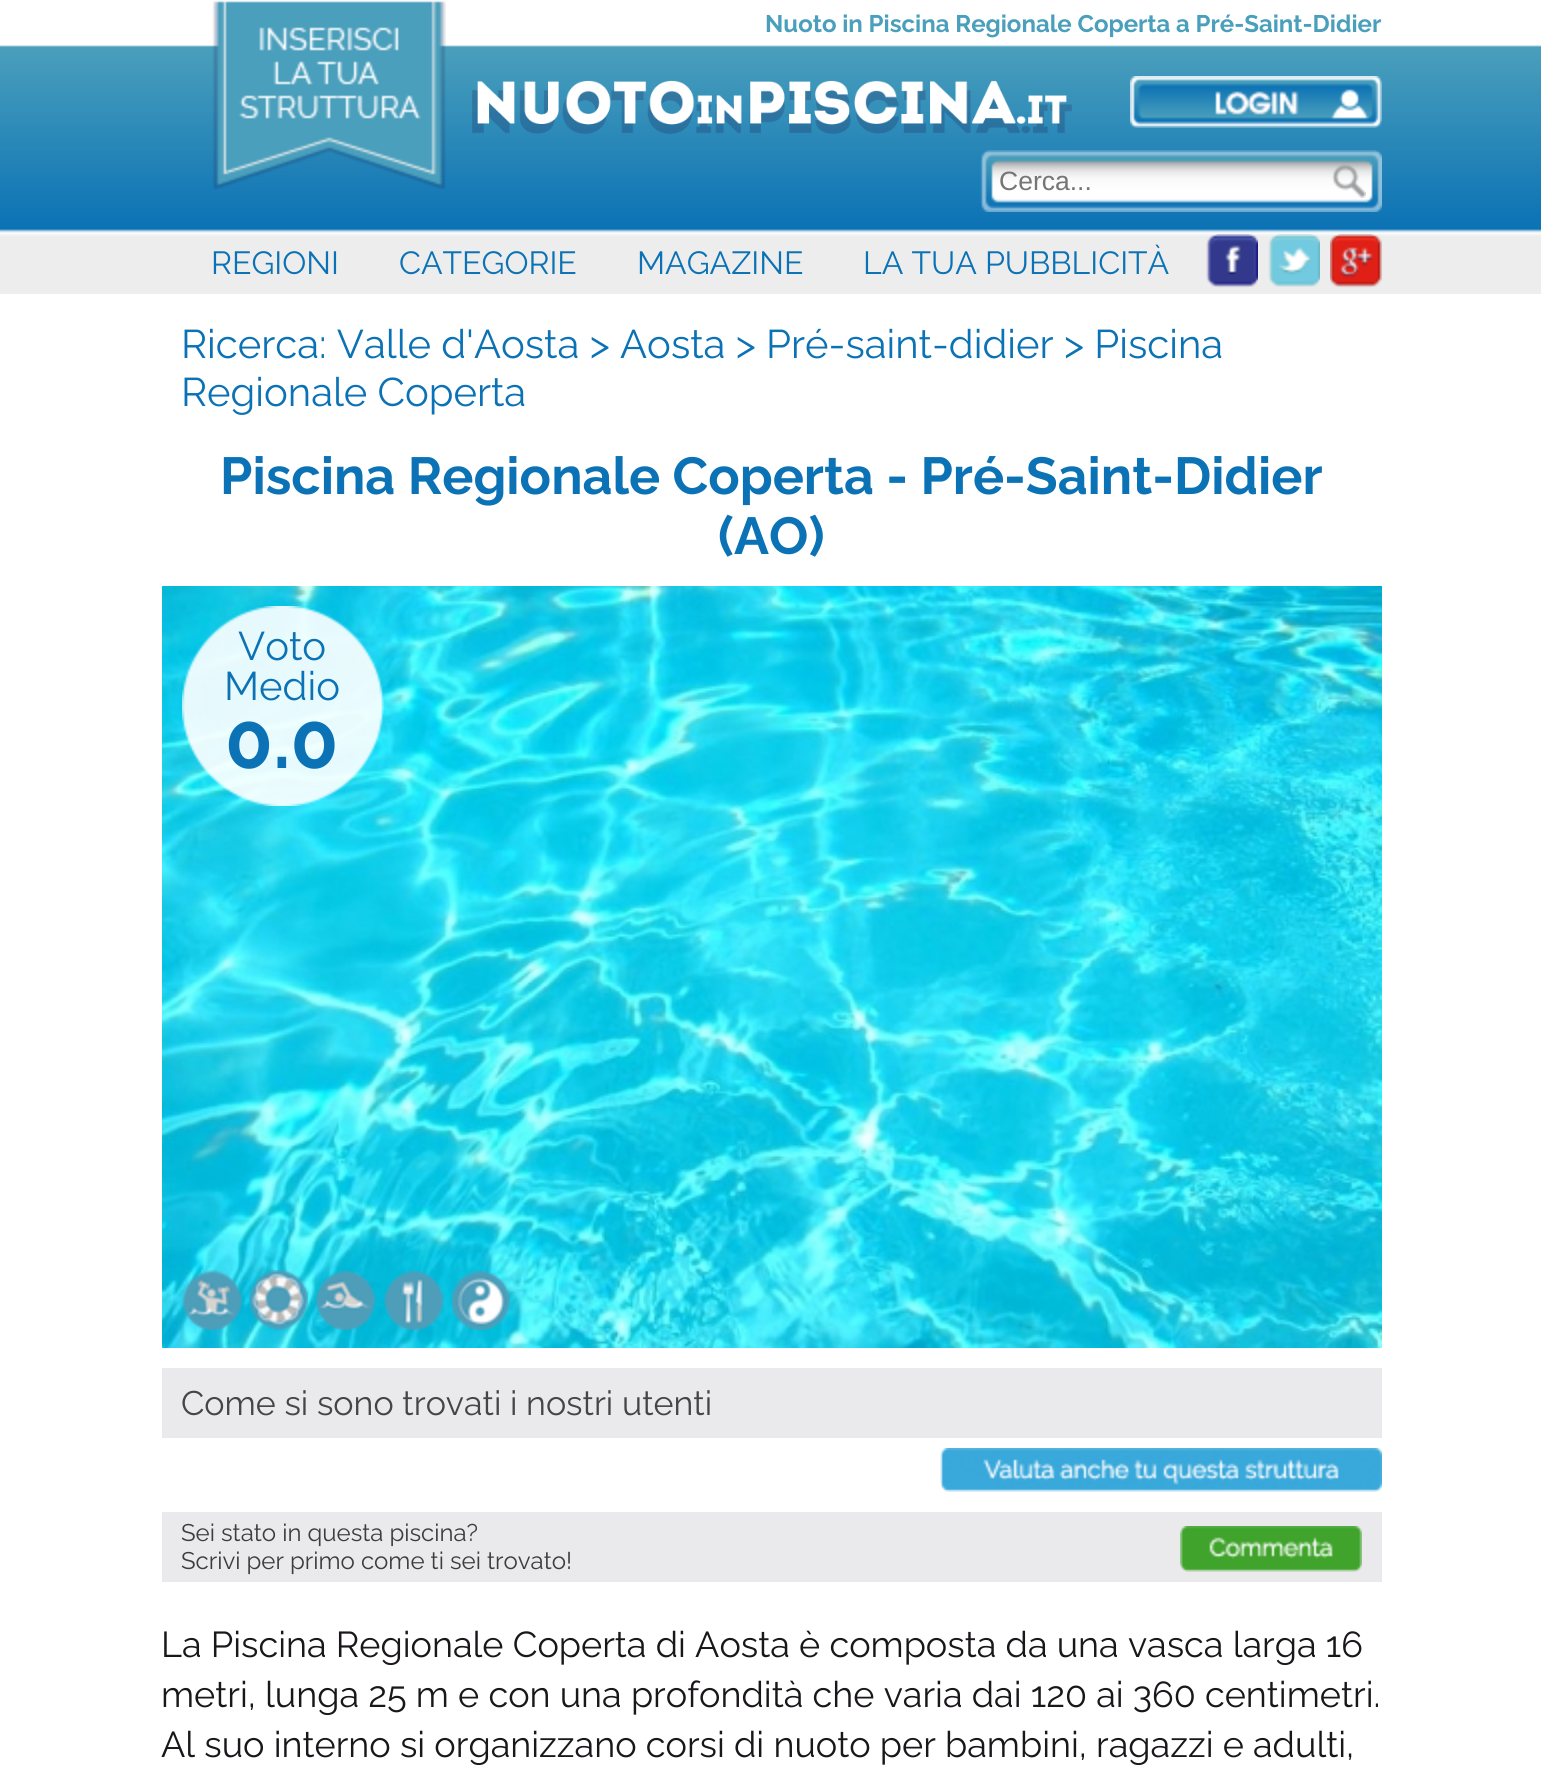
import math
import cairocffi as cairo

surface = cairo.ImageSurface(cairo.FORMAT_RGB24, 1541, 1766)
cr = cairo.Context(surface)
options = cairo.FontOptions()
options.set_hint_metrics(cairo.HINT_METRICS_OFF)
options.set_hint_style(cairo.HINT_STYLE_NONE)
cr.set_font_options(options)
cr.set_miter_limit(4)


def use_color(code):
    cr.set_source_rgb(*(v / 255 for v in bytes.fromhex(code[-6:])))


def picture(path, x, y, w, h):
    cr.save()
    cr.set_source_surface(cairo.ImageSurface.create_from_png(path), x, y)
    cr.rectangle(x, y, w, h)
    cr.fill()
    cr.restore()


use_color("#ffffff")
cr.paint()
picture("img1.png", 0, 45, 1541, 249)
picture("img2.png", 212, 0, 234, 190)
cr.select_font_face("Raleway", cairo.FONT_SLANT_NORMAL, cairo.FONT_WEIGHT_BOLD)
cr.set_font_size(24)
use_color("#4a9fbc")
cr.move_to(765, 32)
cr.show_text("Nuoto in Piscina Regionale Coperta a Pré-Saint-Didier")
picture("img3.png", 472, 80, 600, 54)
picture("img4.png", 1130, 76, 252, 52)
picture("img5.png", 980, 150, 402, 62)
cr.select_font_face("Liberation Sans")
cr.set_font_size(26.5)
use_color("#757575")
cr.move_to(999, 190)
cr.show_text("Cerca...")
picture("img6.png", 1332, 164, 34, 34)
cr.select_font_face("Raleway")
cr.set_font_size(32)
use_color("#0b72b5")
cr.move_to(211, 274)
cr.show_text("REGIONI")
cr.move_to(399, 274)
cr.show_text("CATEGORIE")
cr.move_to(637, 274)
cr.show_text("MAGAZINE")
cr.move_to(863, 274)
cr.show_text("LA TUA PUBBLICITÀ")
picture("img7.png", 1206, 234, 52, 54)
picture("img8.png", 1268, 234, 52, 53)
picture("img9.png", 1330, 234, 52, 54)
cr.set_font_size(40)
cr.move_to(181, 358)
cr.show_text("Ricerca: Valle d'Aosta > Aosta > Pré-saint-didier > Piscina")
cr.move_to(181, 406)
cr.show_text("Regionale Coperta")
cr.select_font_face("Raleway", cairo.FONT_SLANT_NORMAL, cairo.FONT_WEIGHT_BOLD)
cr.set_font_size(52)
cr.move_to(220, 494)
cr.show_text("Piscina Regionale Coperta - Pré-Saint-Didier")
cr.move_to(718, 554)
cr.show_text("(AO)")
picture("img10.png", 162, 586, 1220, 762)
picture("img11.png", 182, 606, 202, 200)
cr.select_font_face("Raleway")
cr.set_font_size(40)
cr.move_to(238, 660)
cr.show_text("Voto")
cr.move_to(224, 700)
cr.show_text("Medio")
cr.select_font_face("Raleway", cairo.FONT_SLANT_NORMAL, cairo.FONT_WEIGHT_BOLD)
cr.set_font_size(78)
cr.move_to(225, 768)
cr.show_text("0.0")
picture("img12.png", 182, 1270, 60, 60)
picture("img13.png", 250, 1270, 58, 60)
picture("img14.png", 316, 1270, 60, 60)
picture("img15.png", 384, 1270, 60, 60)
picture("img16.png", 452, 1270, 58, 60)
use_color("#eaeaec")
cr.rectangle(162, 1368, 1220, 70)
cr.fill()
cr.select_font_face("Raleway")
cr.set_font_size(34)
use_color("#454545")
cr.move_to(181, 1415)
cr.show_text("Come si sono trovati i nostri utenti")
picture("img17.png", 940, 1448, 442, 44)
use_color("#eaeaec")
cr.rectangle(162, 1512, 1220, 70)
cr.fill()
cr.set_font_size(24)
use_color("#3d3d3c")
cr.move_to(181, 1541)
cr.show_text("Sei stato in questa piscina?")
cr.move_to(181, 1569)
cr.show_text("Scrivi per primo come ti sei trovato!")
picture("img18.png", 1180, 1526, 182, 46)
cr.set_font_size(36)
use_color("#1a171b")
cr.move_to(161, 1657)
cr.show_text("La Piscina Regionale Coperta di Aosta è composta da una vasca larga 16")
cr.move_to(161, 1707)
cr.show_text("metri, lunga 25 m e con una profondità che varia dai 120 ai 360 centimetri.")
cr.move_to(161, 1757)
cr.show_text("Al suo interno si organizzano corsi di nuoto per bambini, ragazzi e adulti,")
surface.write_to_png("result.png")
